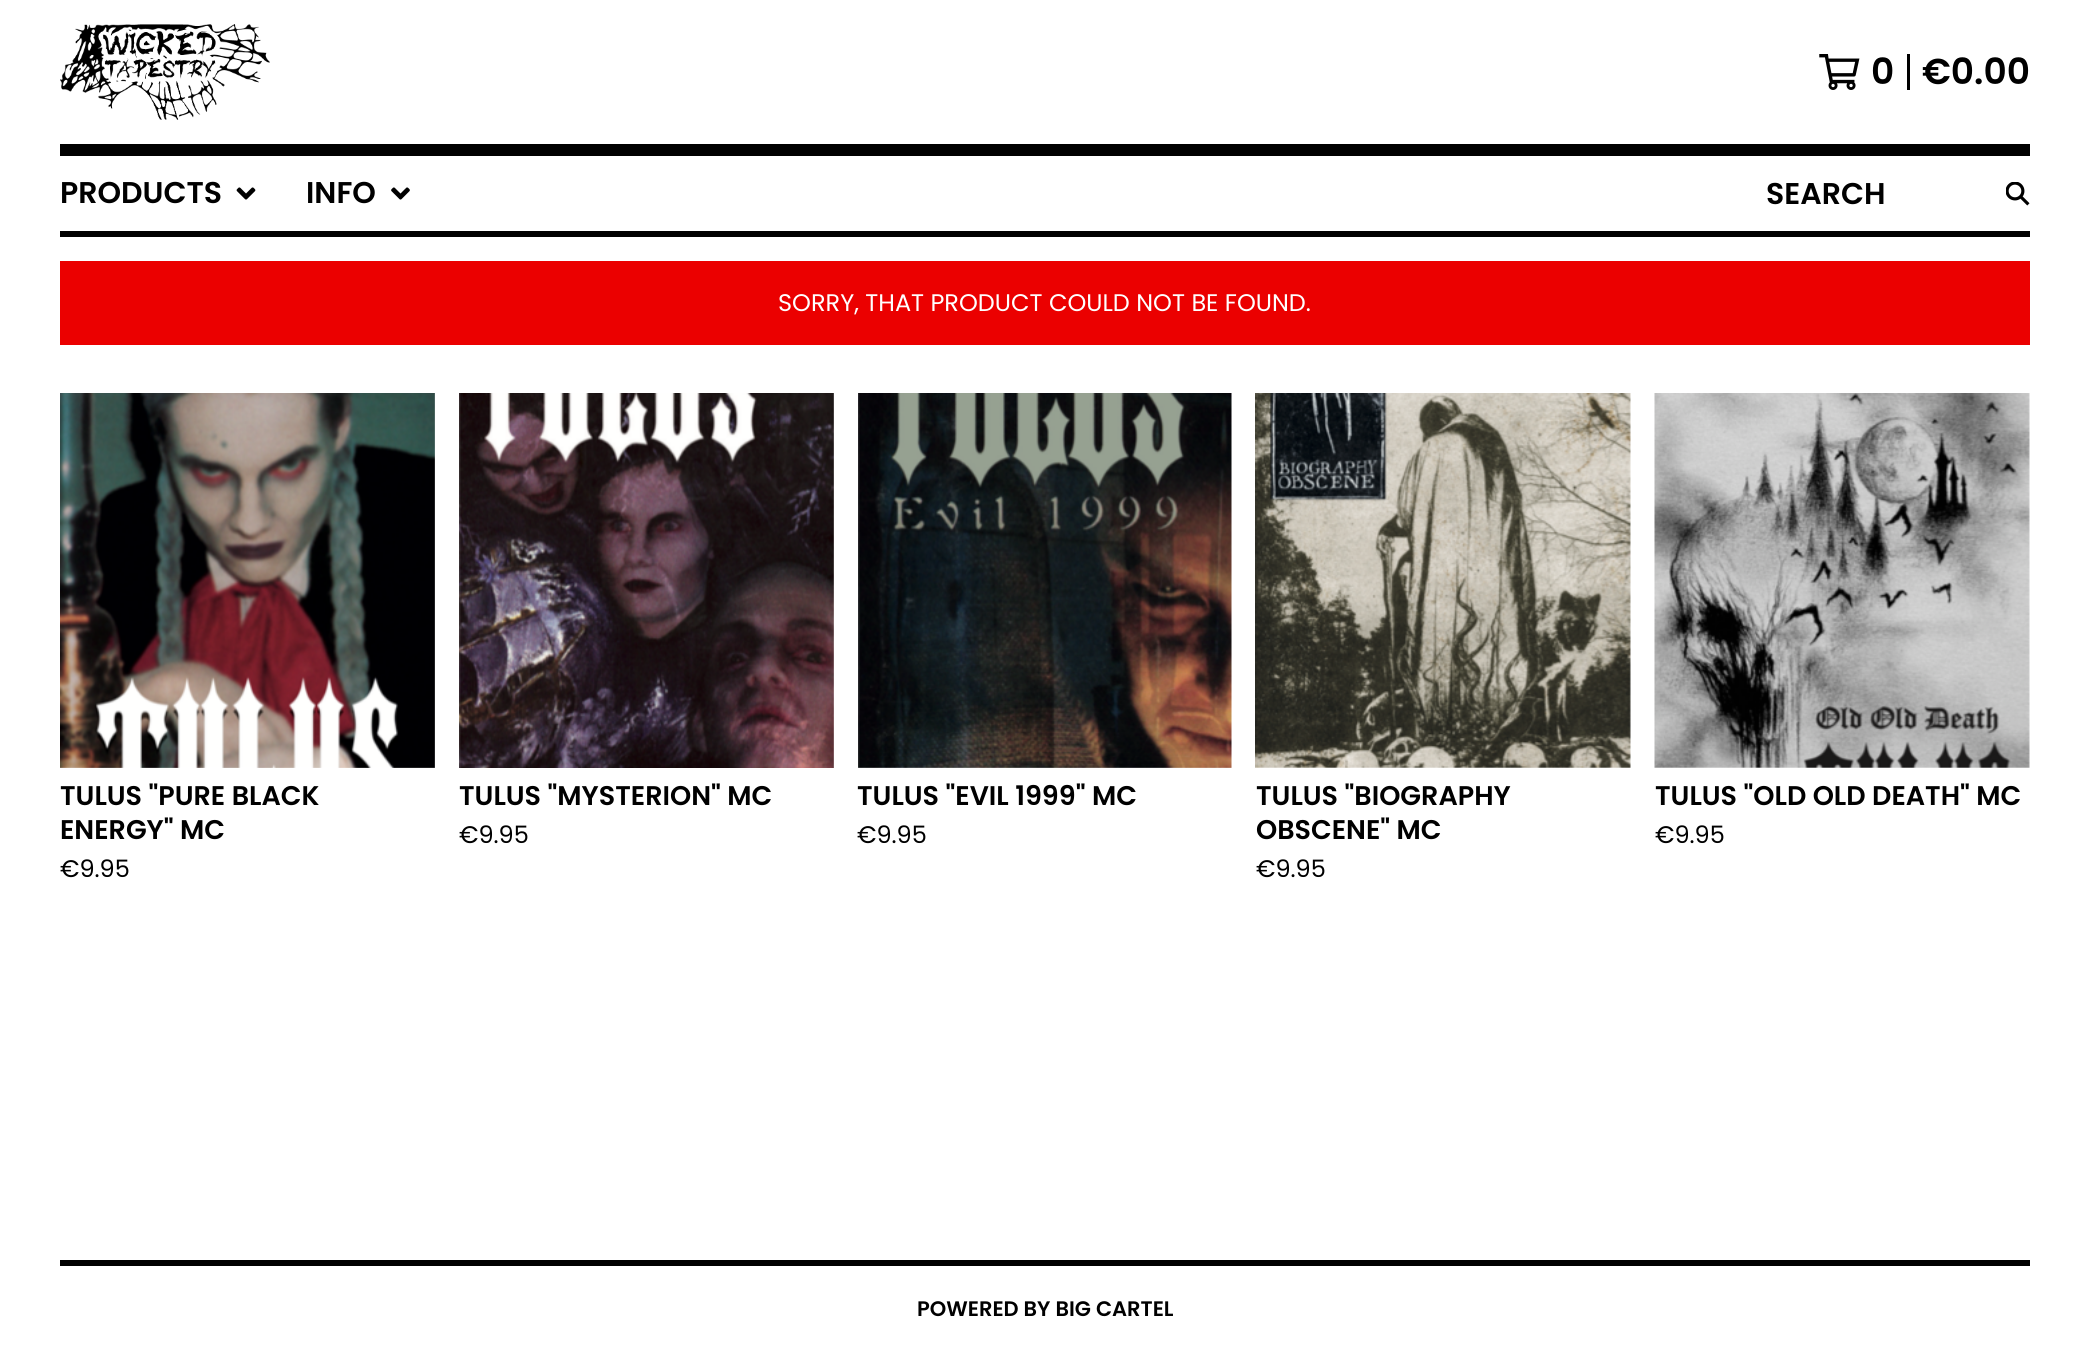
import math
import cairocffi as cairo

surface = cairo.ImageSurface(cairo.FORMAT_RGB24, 2089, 1349)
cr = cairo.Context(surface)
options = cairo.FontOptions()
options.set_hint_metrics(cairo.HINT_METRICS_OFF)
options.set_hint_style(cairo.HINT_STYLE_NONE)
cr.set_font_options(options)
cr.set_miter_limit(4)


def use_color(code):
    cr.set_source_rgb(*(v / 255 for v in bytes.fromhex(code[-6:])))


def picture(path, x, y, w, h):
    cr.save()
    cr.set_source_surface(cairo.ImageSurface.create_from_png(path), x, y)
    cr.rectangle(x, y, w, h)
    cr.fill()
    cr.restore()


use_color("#ffffff")
cr.paint()
use_color("#000000")
cr.rectangle(60, 144, 1970, 12)
cr.fill()
picture("img1.png", 60, 24, 210, 96)
picture("img2.png", 1819, 54, 41, 36)
cr.rectangle(1907, 54, 3, 36)
cr.fill()
cr.select_font_face("Poppins SemiBold")
cr.set_font_size(36)
cr.move_to(1871, 84)
cr.show_text("0")
cr.move_to(1922, 84)
cr.show_text("€0.00")
cr.rectangle(60, 231, 1970, 6)
cr.fill()
cr.set_font_size(30)
cr.move_to(60, 203)
cr.show_text("PRODUCTS")
picture("img3.png", 236, 187, 20, 13)
cr.move_to(306, 203)
cr.show_text("INFO")
picture("img4.png", 391, 187, 19, 13)
cr.move_to(1766, 204)
cr.show_text("SEARCH")
picture("img5.png", 2006, 182, 24, 24)
use_color("#eb0000")
cr.rectangle(60, 261, 1970, 84)
cr.fill()
cr.select_font_face("Poppins")
cr.set_font_size(24)
use_color("#ffffff")
cr.move_to(778, 311)
cr.show_text("SORRY, THAT PRODUCT COULD NOT BE FOUND.")
picture("img6.png", 60, 393, 375, 375)
cr.select_font_face("Poppins SemiBold")
cr.set_font_size(27)
use_color("#000000")
cr.move_to(60, 805)
cr.show_text("TULUS \"PURE BLACK")
cr.move_to(60, 839)
cr.show_text("ENERGY\" MC")
cr.select_font_face("Poppins")
cr.set_font_size(24)
cr.move_to(60, 877)
cr.show_text("€9.95")
picture("img7.png", 459, 393, 375, 375)
cr.select_font_face("Poppins SemiBold")
cr.set_font_size(27)
cr.move_to(459, 805)
cr.show_text("TULUS \"MYSTERION\" MC")
cr.select_font_face("Poppins")
cr.set_font_size(24)
cr.move_to(459, 843)
cr.show_text("€9.95")
picture("img8.png", 858, 393, 374, 375)
cr.select_font_face("Poppins SemiBold")
cr.set_font_size(27)
cr.move_to(857, 805)
cr.show_text("TULUS \"EVIL 1999\" MC")
cr.select_font_face("Poppins")
cr.set_font_size(24)
cr.move_to(857, 843)
cr.show_text("€9.95")
picture("img9.png", 1255, 393, 376, 375)
cr.select_font_face("Poppins SemiBold")
cr.set_font_size(27)
cr.move_to(1256, 805)
cr.show_text("TULUS \"BIOGRAPHY")
cr.move_to(1256, 839)
cr.show_text("OBSCENE\" MC")
cr.select_font_face("Poppins")
cr.set_font_size(24)
cr.move_to(1256, 877)
cr.show_text("€9.95")
picture("img10.png", 1654, 393, 376, 375)
cr.select_font_face("Poppins SemiBold")
cr.set_font_size(27)
cr.move_to(1655, 805)
cr.show_text("TULUS \"OLD OLD DEATH\" MC")
cr.select_font_face("Poppins")
cr.set_font_size(24)
cr.move_to(1655, 843)
cr.show_text("€9.95")
cr.rectangle(60, 1260, 1970, 6)
cr.fill()
cr.select_font_face("Poppins SemiBold")
cr.set_font_size(21)
cr.move_to(917, 1316)
cr.show_text("POWERED BY BIG CARTEL")
surface.write_to_png("result.png")
